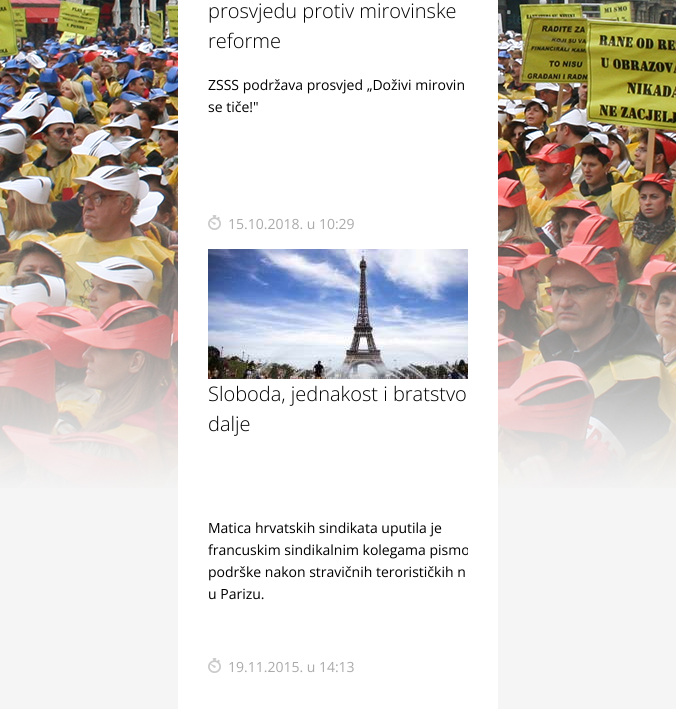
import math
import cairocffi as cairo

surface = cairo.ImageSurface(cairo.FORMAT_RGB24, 676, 709)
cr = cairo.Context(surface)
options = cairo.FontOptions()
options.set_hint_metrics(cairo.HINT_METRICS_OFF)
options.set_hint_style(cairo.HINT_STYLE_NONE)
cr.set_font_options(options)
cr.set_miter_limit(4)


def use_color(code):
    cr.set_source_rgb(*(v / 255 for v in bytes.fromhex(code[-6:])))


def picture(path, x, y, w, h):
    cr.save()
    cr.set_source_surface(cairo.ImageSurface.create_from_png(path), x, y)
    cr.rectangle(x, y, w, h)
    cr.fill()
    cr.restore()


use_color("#f5f5f5")
cr.paint()
picture("img1.png", 0, 0, 676, 488)
use_color("#ffffff")
cr.rectangle(178, 0, 320, 709)
cr.fill()
cr.select_font_face("Open Sans Light")
cr.set_font_size(20)
use_color("#000000")
cr.move_to(208, 18)
cr.show_text("prosvjedu protiv mirovinske")
cr.move_to(208, 48)
cr.show_text("reforme")
cr.select_font_face("Open Sans")
cr.set_font_size(14)
cr.move_to(208, 90)
cr.show_text("ZSSS podržava prosvjed „Doživi mirovin")
cr.move_to(208, 112)
cr.show_text("se tiče!\"")
picture("img2.png", 208, 215, 13, 15)
use_color("#aaaaaa")
cr.move_to(228, 229)
cr.show_text("15.10.2018. u 10:29")
picture("img3.png", 208, 249, 260, 130)
cr.select_font_face("Open Sans Light")
cr.set_font_size(20)
use_color("#000000")
cr.move_to(208, 401)
cr.show_text("Sloboda, jednakost i bratstvo")
cr.move_to(208, 431)
cr.show_text("dalje")
cr.select_font_face("Open Sans")
cr.set_font_size(14)
cr.move_to(208, 533)
cr.show_text("Matica hrvatskih sindikata uputila je")
cr.save()
cr.rectangle(208, 517, 260, 125)
cr.clip()
cr.move_to(208, 555)
cr.show_text("francuskim sindikalnim kolegama pismo")
cr.restore()
cr.move_to(208, 577)
cr.show_text("podrške nakon stravičnih terorističkih n")
cr.move_to(208, 599)
cr.show_text("u Parizu.")
picture("img2.png", 208, 658, 13, 15)
use_color("#aaaaaa")
cr.move_to(228, 672)
cr.show_text("19.11.2015. u 14:13")
surface.write_to_png("result.png")
